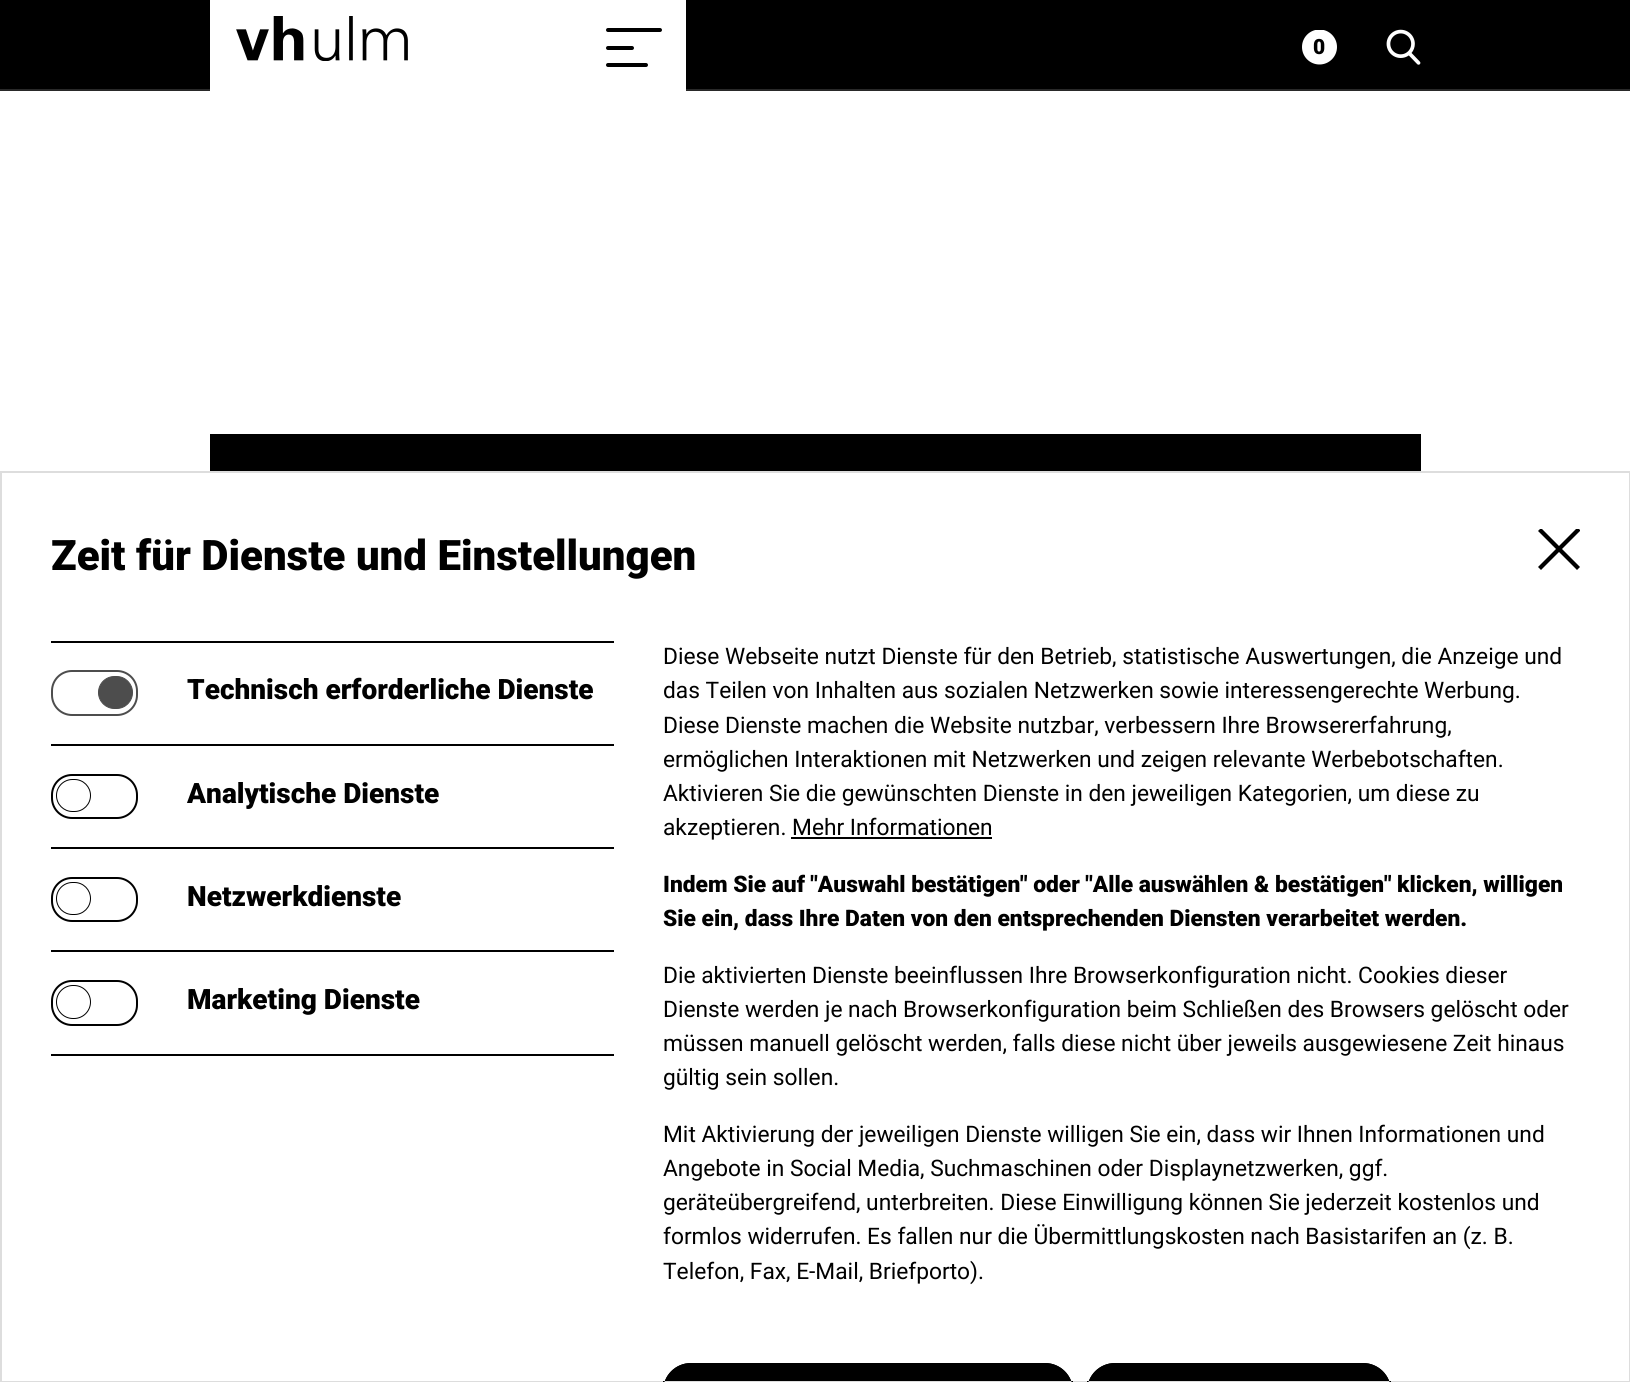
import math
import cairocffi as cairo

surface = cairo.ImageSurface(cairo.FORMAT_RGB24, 1630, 1382)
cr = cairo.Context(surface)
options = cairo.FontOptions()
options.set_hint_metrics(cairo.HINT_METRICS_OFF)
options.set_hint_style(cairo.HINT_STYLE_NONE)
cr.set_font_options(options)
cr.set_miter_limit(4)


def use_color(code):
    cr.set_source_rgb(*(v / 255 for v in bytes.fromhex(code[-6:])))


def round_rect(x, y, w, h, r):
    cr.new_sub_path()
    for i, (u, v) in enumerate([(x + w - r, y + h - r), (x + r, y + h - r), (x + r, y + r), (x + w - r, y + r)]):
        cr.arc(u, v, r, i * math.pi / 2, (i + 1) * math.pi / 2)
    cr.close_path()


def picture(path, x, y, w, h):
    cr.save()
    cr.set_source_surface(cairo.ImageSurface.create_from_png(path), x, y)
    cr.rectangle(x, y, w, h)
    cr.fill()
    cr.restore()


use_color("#ffffff")
cr.paint()
use_color("#000000")
cr.rectangle(0, 0, 1630, 89)
cr.fill()
use_color("#292929")
cr.rectangle(0, 89, 1630, 2)
cr.fill()
use_color("#ffffff")
cr.rectangle(210, 0, 476, 91)
cr.fill()
picture("img1.png", 236, 16, 172, 45)
use_color("#000000")
round_rect(606, 28, 56, 4, 2)
cr.fill()
round_rect(606, 46, 28, 4, 2)
cr.fill()
round_rect(606, 63, 42, 4, 2)
cr.fill()
cr.save()
cr.rectangle(1302, 30, 35, 35)
cr.clip()
use_color("#ffffff")
cr.arc(1319.5, 47, 17.5, 0, 2 * math.pi)
cr.fill()
cr.restore()
cr.select_font_face("Roboto Black")
cr.set_font_size(21)
cr.move_to(1313, 54)
cr.show_text("0")
picture("img2.png", 1386, 29, 35, 36)
cr.rectangle(210, 434, 1211, 37)
cr.fill()
cr.rectangle(1, 472, 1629, 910)
use_color("#dddddd")
cr.stroke()
cr.set_font_size(42)
use_color("#000000")
cr.move_to(51, 570)
cr.show_text("Zeit für Dienste und Einstellungen")
cr.new_path()
cr.move_to(1580, 531)
cr.line_to(1580, 530)
cr.line_to(1579, 529)
cr.line_to(1576, 529)
cr.line_to(1559, 546)
cr.line_to(1542, 529)
cr.line_to(1540, 529)
cr.line_to(1538, 531)
cr.line_to(1556, 549)
cr.line_to(1538, 567)
cr.line_to(1541, 570)
cr.line_to(1559, 552)
cr.line_to(1577, 570)
cr.line_to(1580, 567)
cr.line_to(1562, 549)
cr.close_path()
cr.fill()
cr.rectangle(51, 641, 563, 2)
cr.fill()
round_rect(52, 671, 85, 44, 20)
use_color("#4d4d4d")
cr.stroke()
round_rect(98.5, 676.5, 34, 32, 16)
cr.fill_preserve()
cr.set_line_width(1)
cr.stroke()
cr.set_font_size(28)
use_color("#000000")
cr.move_to(187, 699)
cr.show_text("Technisch erforderliche Dienste")
cr.rectangle(51, 744, 563, 2)
cr.fill()
round_rect(52, 775, 85, 43, 20)
cr.set_line_width(2)
cr.stroke()
round_rect(56.5, 779.5, 34, 32, 16)
cr.set_line_width(1)
cr.stroke()
cr.move_to(187, 803)
cr.show_text("Analytische Dienste")
cr.rectangle(51, 847, 563, 2)
cr.fill()
round_rect(52, 878, 85, 43, 20)
cr.set_line_width(2)
cr.stroke()
round_rect(56.5, 882.5, 34, 32, 16)
cr.set_line_width(1)
cr.stroke()
cr.move_to(187, 906)
cr.show_text("Netzwerkdienste")
cr.rectangle(51, 950, 563, 2)
cr.fill()
cr.rectangle(51, 1054, 563, 2)
cr.fill()
round_rect(52, 981, 85, 44, 20)
cr.set_line_width(2)
cr.stroke()
round_rect(56.5, 985.5, 34, 33, 16.5)
cr.set_line_width(1)
cr.stroke()
cr.move_to(187, 1009)
cr.show_text("Marketing Dienste")
cr.select_font_face("Roboto")
cr.set_font_size(22.75)
cr.move_to(663, 664)
cr.show_text("Diese Webseite nutzt Dienste für den Betrieb, statistische Auswertungen, die Anzeige und")
cr.move_to(663, 698)
cr.show_text("das Teilen von Inhalten aus sozialen Netzwerken sowie interessengerechte Werbung.")
cr.move_to(663, 733)
cr.show_text("Diese Dienste machen die Website nutzbar, verbessern Ihre Browsererfahrung,")
cr.move_to(663, 767)
cr.show_text("ermöglichen Interaktionen mit Netzwerken und zeigen relevante Werbebotschaften.")
cr.move_to(663, 801)
cr.show_text("Aktivieren Sie die gewünschten Dienste in den jeweiligen Kategorien, um diese zu")
cr.move_to(663, 835)
cr.show_text("akzeptieren. Mehr Informationen")
cr.rectangle(791, 837, 201, 2)
cr.fill()
cr.select_font_face("Roboto Black")
cr.move_to(663, 892)
cr.show_text("Indem Sie auf \"Auswahl bestätigen\" oder \"Alle auswählen & bestätigen\" klicken, willigen")
cr.move_to(663, 926)
cr.show_text("Sie ein, dass Ihre Daten von den entsprechenden Diensten verarbeitet werden.")
cr.select_font_face("Roboto")
cr.move_to(663, 983)
cr.show_text("Die aktivierten Dienste beeinflussen Ihre Browserkonfiguration nicht. Cookies dieser")
cr.move_to(663, 1017)
cr.show_text("Dienste werden je nach Browserkonfiguration beim Schließen des Browsers gelöscht oder")
cr.move_to(663, 1051)
cr.show_text("müssen manuell gelöscht werden, falls diese nicht über jeweils ausgewiesene Zeit hinaus")
cr.move_to(663, 1085)
cr.show_text("gültig sein sollen.")
cr.move_to(663, 1142)
cr.show_text("Mit Aktivierung der jeweiligen Dienste willigen Sie ein, dass wir Ihnen Informationen und")
cr.move_to(663, 1176)
cr.show_text("Angebote in Social Media, Suchmaschinen oder Displaynetzwerken, ggf.")
cr.move_to(663, 1210)
cr.show_text("geräteübergreifend, unterbreiten. Diese Einwilligung können Sie jederzeit kostenlos und")
cr.move_to(663, 1244)
cr.show_text("formlos widerrufen. Es fallen nur die Übermittlungskosten nach Basistarifen an (z. B.")
cr.move_to(663, 1279)
cr.show_text("Telefon, Fax, E-Mail, Briefporto).")
cr.new_path()
cr.move_to(691, 1363)
cr.line_to(1045, 1363)
cr.curve_to(1060.5, 1363, 1073, 1375.5, 1073, 1391)
cr.line_to(1073, 1381)
cr.line_to(663, 1381)
cr.line_to(663, 1391)
cr.curve_to(663, 1375.5, 675.5, 1363, 691, 1363)
cr.close_path()
cr.fill()
cr.save()
cr.rectangle(2, 473, 1627, 908)
cr.clip()
round_rect(664, 1364, 408, 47, 27)
cr.set_line_width(2)
cr.stroke()
cr.restore()
cr.new_path()
cr.move_to(1115, 1363)
cr.line_to(1363, 1363)
cr.curve_to(1378.5, 1363, 1391, 1375.5, 1391, 1391)
cr.line_to(1391, 1381)
cr.line_to(1087, 1381)
cr.line_to(1087, 1391)
cr.curve_to(1087, 1375.5, 1099.5, 1363, 1115, 1363)
cr.close_path()
cr.fill()
cr.save()
cr.rectangle(2, 473, 1627, 908)
cr.clip()
round_rect(1088, 1364, 302, 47, 27)
cr.set_line_width(2)
cr.stroke()
cr.restore()
surface.write_to_png("result.png")
